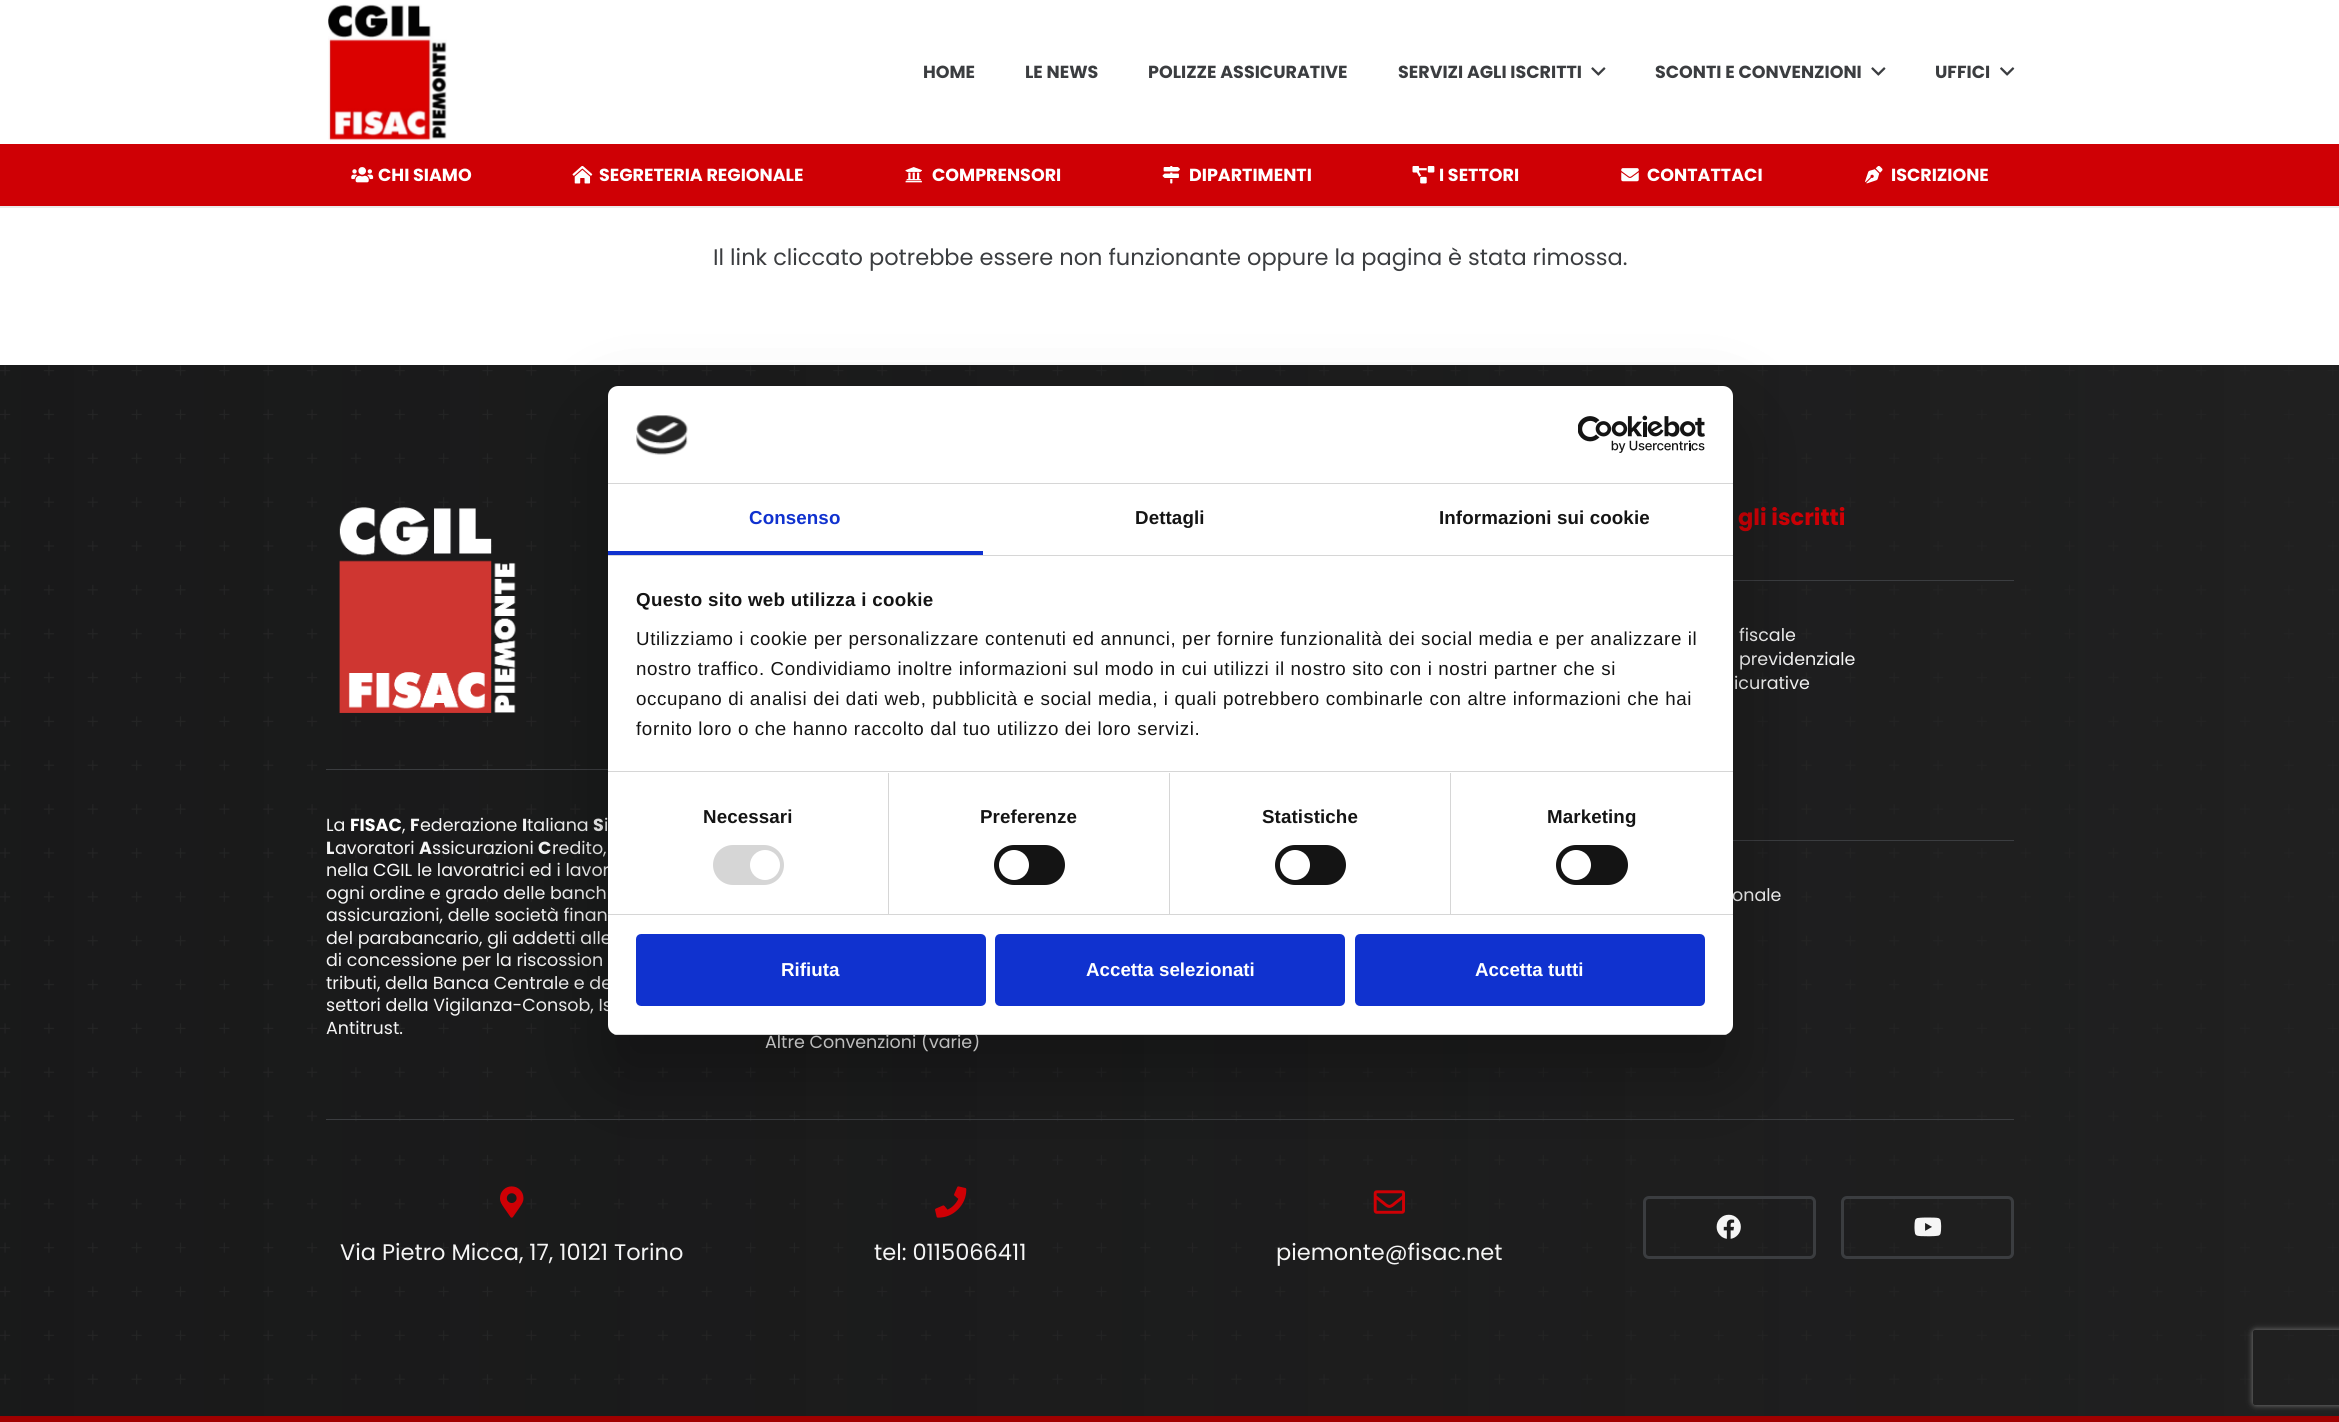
import math
import cairocffi as cairo

surface = cairo.ImageSurface(cairo.FORMAT_RGB24, 2339, 1422)
cr = cairo.Context(surface)
options = cairo.FontOptions()
options.set_hint_metrics(cairo.HINT_METRICS_OFF)
options.set_hint_style(cairo.HINT_STYLE_NONE)
cr.set_font_options(options)
cr.set_miter_limit(4)


def use_color(code):
    cr.set_source_rgb(*(v / 255 for v in bytes.fromhex(code[-6:])))


def spaced_text(x, y, s, letter, word):
    cr.move_to(x, y)
    for ch in s:
        cr.show_text(ch)
        cr.rel_move_to(letter + word * (ch == ' '), 0)


def round_rect(x, y, w, h, r):
    cr.new_sub_path()
    for i, (u, v) in enumerate([(x + w - r, y + h - r), (x + r, y + h - r), (x + r, y + r), (x + w - r, y + r)]):
        cr.arc(u, v, r, i * math.pi / 2, (i + 1) * math.pi / 2)
    cr.close_path()


def shadow(x, y, w, h, r, blur, alpha):
    cr.push_group_with_content(cairo.CONTENT_ALPHA)
    cr.set_operator(cairo.OPERATOR_SOURCE)
    for i in range(15, -16, -2):
        e = blur * i / 6
        if min(w, h) + 2 * e > 0:
            cr.set_source_rgba(0, 0, 0, alpha * math.erfc((i - 1) / 8.5) / 2)
            round_rect(x - e, y - e, w + 2 * e, h + 2 * e, max(0, min(r + e + blur * .6, min(w, h) / 2 + e)))
            cr.fill()
    cr.mask(cr.pop_group())


def picture(path, x, y, w, h):
    cr.save()
    cr.set_source_surface(cairo.ImageSurface.create_from_png(path), x, y)
    cr.rectangle(x, y, w, h)
    cr.fill()
    cr.restore()


use_color("#ffffff")
cr.paint()
picture("img1.png", 328, 4, 119, 137)
cr.select_font_face("Poppins", cairo.FONT_SLANT_NORMAL, cairo.FONT_WEIGHT_BOLD)
cr.set_font_size(17.5)
use_color("#3b3d40")
cr.move_to(923, 78)
cr.show_text("HOME")
cr.move_to(1025, 78)
cr.show_text("LE NEWS")
cr.move_to(1148, 78)
cr.show_text("POLIZZE ASSICURATIVE")
cr.move_to(1398, 78)
cr.show_text("SERVIZI AGLI ISCRITTI")
picture("img2.png", 1591, 67, 15, 9)
cr.move_to(1655, 78)
cr.show_text("SCONTI E CONVENZIONI")
picture("img2.png", 1871, 67, 15, 9)
cr.move_to(1935, 78)
cr.show_text("UFFICI")
picture("img3.png", 2000, 67, 15, 9)
cr.set_source_rgba(0, 0, 0, 0.08)
cr.rectangle(0, 206, 2339, 2)
cr.fill()
use_color("#cf0005")
cr.rectangle(0, 144, 2339, 62)
cr.fill()
picture("img4.png", 351, 167, 23, 16)
use_color("#ffffff")
cr.move_to(378, 181)
cr.show_text("CHI SIAMO")
picture("img5.png", 572, 166, 21, 18)
cr.move_to(599, 181)
cr.show_text("SEGRETERIA REGIONALE")
picture("img6.png", 905, 167, 17, 16)
cr.move_to(932, 181)
cr.show_text("COMPRENSORI")
picture("img7.png", 1162, 166, 18, 18)
cr.move_to(1189, 181)
cr.show_text("DIPARTIMENTI")
picture("img8.png", 1412, 166, 23, 18)
cr.move_to(1439, 181)
cr.show_text("I SETTORI")
picture("img9.png", 1621, 168, 18, 14)
cr.move_to(1647, 181)
cr.show_text("CONTATTACI")
picture("img10.png", 1865, 166, 18, 18)
cr.move_to(1891, 181)
cr.show_text("ISCRIZIONE")
cr.select_font_face("Poppins")
cr.set_font_size(22.5)
use_color("#3b3d40")
cr.move_to(713, 265)
cr.show_text("Il link cliccato potrebbe essere non funzionante oppure la pagina è stata rimossa.")
use_color("#27282a")
cr.rectangle(0, 365, 2339, 1051)
cr.fill()
picture("img11.png", 0, 365, 2338, 1020)
gradient = cairo.LinearGradient(0, 891, 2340, 891)
gradient.add_color_stop_rgba(0, 0.078, 0.078, 0.078, 0.71)
gradient.add_color_stop_rgba(1, 0.122, 0.122, 0.122, 0.91)
cr.set_source(gradient)
cr.rectangle(0, 365, 2339, 1051)
cr.fill()
cr.select_font_face("Poppins", cairo.FONT_SLANT_NORMAL, cairo.FONT_WEIGHT_BOLD)
use_color("#cf0005")
cr.move_to(1738, 525)
cr.show_text("gli iscritti")
use_color("#3b3d40")
cr.rectangle(1733, 580, 281, 1)
cr.fill()
cr.select_font_face("Poppins")
cr.set_font_size(17.5)
use_color("#f5f5f5")
cr.move_to(1739, 641)
cr.show_text("fiscale")
cr.move_to(1739, 665)
cr.show_text("previdenziale")
cr.move_to(1734, 689)
cr.show_text("icurative")
use_color("#3b3d40")
cr.rectangle(1733, 840, 281, 1)
cr.fill()
use_color("#f5f5f5")
cr.move_to(1732, 901)
cr.show_text("onale")
picture("img12.png", 339, 507, 177, 206)
use_color("#3b3d40")
cr.rectangle(326, 769, 282, 1)
cr.fill()
use_color("#f5f5f5")
cr.move_to(326, 831)
cr.show_text("La")
cr.select_font_face("Poppins", cairo.FONT_SLANT_NORMAL, cairo.FONT_WEIGHT_BOLD)
use_color("#ffffff")
cr.move_to(350, 831)
cr.show_text("FISAC")
cr.select_font_face("Poppins")
use_color("#f5f5f5")
cr.move_to(402, 831)
cr.show_text(",")
cr.select_font_face("Poppins", cairo.FONT_SLANT_NORMAL, cairo.FONT_WEIGHT_BOLD)
cr.move_to(410, 831)
cr.show_text("F")
cr.select_font_face("Poppins")
cr.move_to(420, 831)
cr.show_text("ederazione")
cr.select_font_face("Poppins", cairo.FONT_SLANT_NORMAL, cairo.FONT_WEIGHT_BOLD)
cr.move_to(522, 831)
cr.show_text("I")
cr.select_font_face("Poppins")
cr.move_to(527, 831)
cr.show_text("taliana")
cr.select_font_face("Poppins", cairo.FONT_SLANT_NORMAL, cairo.FONT_WEIGHT_BOLD)
cr.move_to(593, 831)
cr.show_text("S")
cr.select_font_face("Poppins")
cr.move_to(604, 831)
cr.show_text("i")
cr.select_font_face("Poppins", cairo.FONT_SLANT_NORMAL, cairo.FONT_WEIGHT_BOLD)
cr.move_to(326, 854)
cr.show_text("L")
cr.select_font_face("Poppins")
cr.move_to(335, 854)
cr.show_text("avoratori")
cr.select_font_face("Poppins", cairo.FONT_SLANT_NORMAL, cairo.FONT_WEIGHT_BOLD)
cr.move_to(419, 854)
cr.show_text("A")
cr.select_font_face("Poppins")
cr.move_to(432, 854)
cr.show_text("ssicurazioni")
cr.select_font_face("Poppins", cairo.FONT_SLANT_NORMAL, cairo.FONT_WEIGHT_BOLD)
cr.move_to(538, 854)
cr.show_text("C")
cr.select_font_face("Poppins")
cr.move_to(552, 854)
cr.show_text("redito,")
cr.move_to(326, 876)
cr.show_text("nella")
use_color("#ffffff")
cr.move_to(373, 876)
cr.show_text("CGIL")
use_color("#f5f5f5")
cr.move_to(417, 876)
cr.show_text("le lavoratrici ed i lavor")
cr.move_to(326, 899)
cr.show_text("ogni ordine e grado delle banch")
cr.move_to(326, 921)
cr.show_text("assicurazioni, delle società finan")
cr.move_to(326, 944)
cr.show_text("del parabancario, gli addetti alle")
cr.move_to(326, 966)
cr.show_text("di concessione per la riscossion")
cr.move_to(326, 989)
cr.show_text("tributi, della Banca Centrale e de")
cr.move_to(326, 1011)
cr.show_text("settori della Vigilanza-Consob, Is")
cr.move_to(326, 1034)
cr.show_text("Antitrust.")
cr.move_to(765, 1048)
cr.show_text("Altre Convenzioni (varie)")
use_color("#3b3d40")
cr.rectangle(326, 1119, 1688, 1)
cr.fill()
picture("img13.png", 500, 1186, 24, 32)
cr.set_font_size(22.5)
use_color("#f5f5f5")
cr.move_to(340, 1260)
cr.show_text("Via Pietro Micca, 17, 10121 Torino")
picture("img14.png", 935, 1186, 32, 32)
cr.move_to(874, 1260)
cr.show_text("tel: 0115066411")
picture("img15.png", 1373, 1190, 32, 24)
cr.move_to(1276, 1260)
cr.show_text("piemonte@fisac.net")
round_rect(1644.5, 1197.5, 170, 60, 4.5)
use_color("#3b3d40")
cr.set_line_width(3)
cr.stroke()
picture("img16.png", 1716, 1214, 25, 25)
round_rect(1842.5, 1197.5, 170, 60, 4.5)
cr.stroke()
picture("img17.png", 1914, 1217, 28, 20)
gradient = cairo.LinearGradient(1170, 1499, 1170, 1416)
gradient.add_color_stop_rgba(0, 0.812, 0, 0.02, 1)
gradient.add_color_stop_rgba(1, 0.62, 0, 0, 1)
cr.set_source(gradient)
cr.rectangle(0, 1416, 2339, 6)
cr.fill()
use_color("#000000")
shadow(608, 426, 1125, 649, 10, 42.5, 0.3)
use_color("#ffffff")
round_rect(608, 386, 1125, 649, 10)
cr.fill()
use_color("#d6d6d6")
cr.rectangle(608, 483, 1125, 1)
cr.fill()
picture("img18.png", 636, 415, 52, 40)
picture("img19.png", 1578, 415, 127, 38)
cr.rectangle(608, 555, 1125, 1)
cr.fill()
use_color("#1032cf")
cr.rectangle(608, 551, 375, 4)
cr.fill()
cr.select_font_face("Liberation Sans", cairo.FONT_SLANT_NORMAL, cairo.FONT_WEIGHT_BOLD)
cr.set_font_size(18.75)
spaced_text(749, 524, "Consenso", 0.1, 0)
use_color("#141414")
spaced_text(1135, 524, "Dettagli", 0.1, 0)
spaced_text(1439, 524, "Informazioni sui cookie", 0.1, 0)
use_color("#d6d6d6")
cr.rectangle(608, 771, 1125, 1)
cr.fill()
use_color("#141414")
spaced_text(636, 606, "Questo sito web utilizza i cookie", 0.3, 0)
cr.select_font_face("Liberation Sans")
spaced_text(636, 645, "Utilizziamo i cookie per personalizzare contenuti ed annunci, per fornire funzionalità dei social media e per analizzare il", 0.62, 0)
spaced_text(636, 675, "nostro traffico. Condividiamo inoltre informazioni sul modo in cui utilizzi il nostro sito con i nostri partner che si", 0.62, 0)
spaced_text(636, 705, "occupano di analisi dei dati web, pubblicità e social media, i quali potrebbero combinarle con altre informazioni che hai", 0.62, 0)
spaced_text(636, 735, "fornito loro o che hanno raccolto dal tuo utilizzo dei loro servizi.", 0.62, 0)
use_color("#d6d6d6")
cr.rectangle(608, 914, 1125, 1)
cr.fill()
cr.rectangle(888, 773, 1, 141)
cr.fill()
cr.select_font_face("Liberation Sans", cairo.FONT_SLANT_NORMAL, cairo.FONT_WEIGHT_BOLD)
use_color("#141414")
spaced_text(703, 823, "Necessari", 0.1, 0)
use_color("#d6d6d6")
round_rect(713, 845, 71, 40, 20)
cr.fill()
use_color("#ffffff")
cr.arc(765, 865, 15, 0, 2 * math.pi)
cr.fill()
use_color("#d6d6d6")
cr.rectangle(1169, 773, 1, 141)
cr.fill()
use_color("#141414")
spaced_text(980, 823, "Preferenze", 0.1, 0)
round_rect(994, 845, 71, 40, 20)
cr.fill()
use_color("#ffffff")
cr.arc(1014, 865, 15, 0, 2 * math.pi)
cr.fill()
use_color("#d6d6d6")
cr.rectangle(1450, 773, 1, 141)
cr.fill()
use_color("#141414")
spaced_text(1262, 823, "Statistiche", 0.1, 0)
round_rect(1275, 845, 71, 40, 20)
cr.fill()
use_color("#ffffff")
cr.arc(1295, 865, 15, 0, 2 * math.pi)
cr.fill()
use_color("#141414")
spaced_text(1547, 823, "Marketing", 0.1, 0)
round_rect(1556, 845, 72, 40, 20)
cr.fill()
use_color("#ffffff")
cr.arc(1576, 865, 15, 0, 2 * math.pi)
cr.fill()
cr.save()
round_rect(608, 386, 1125, 649, 10)
cr.clip()
use_color("#d6d6d6")
cr.rectangle(608, 1034, 1125, 1)
cr.fill()
cr.restore()
use_color("#1032cf")
round_rect(637.5, 935.5, 347, 69, 3.5)
cr.fill_preserve()
cr.stroke()
use_color("#ffffff")
cr.move_to(781, 976)
cr.show_text("Rifiuta")
use_color("#1032cf")
round_rect(996.5, 935.5, 347, 69, 3.5)
cr.fill_preserve()
cr.stroke()
use_color("#ffffff")
cr.move_to(1086, 976)
cr.show_text("Accetta selezionati")
use_color("#1032cf")
round_rect(1356.5, 935.5, 347, 69, 3.5)
cr.fill_preserve()
cr.stroke()
use_color("#ffffff")
cr.move_to(1475, 976)
cr.show_text("Accetta tutti")
cr.save()
cr.set_fill_rule(cairo.FILL_RULE_EVEN_ODD)
cr.new_path()
cr.move_to(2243, 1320)
cr.line_to(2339, 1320)
cr.line_to(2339, 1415)
cr.line_to(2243, 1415)
cr.close_path()
cr.move_to(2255.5, 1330)
cr.line_to(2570.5, 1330)
cr.curve_to(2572, 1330, 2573, 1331, 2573, 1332.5)
cr.line_to(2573, 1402.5)
cr.curve_to(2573, 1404, 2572, 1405, 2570.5, 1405)
cr.line_to(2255.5, 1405)
cr.curve_to(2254, 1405, 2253, 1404, 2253, 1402.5)
cr.line_to(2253, 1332.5)
cr.curve_to(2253, 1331, 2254, 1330, 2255.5, 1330)
cr.close_path()
cr.clip()
use_color("#808080")
shadow(2253, 1330, 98, 75, 2.5, 3, 1)
cr.restore()
surface.write_to_png("result.png")
